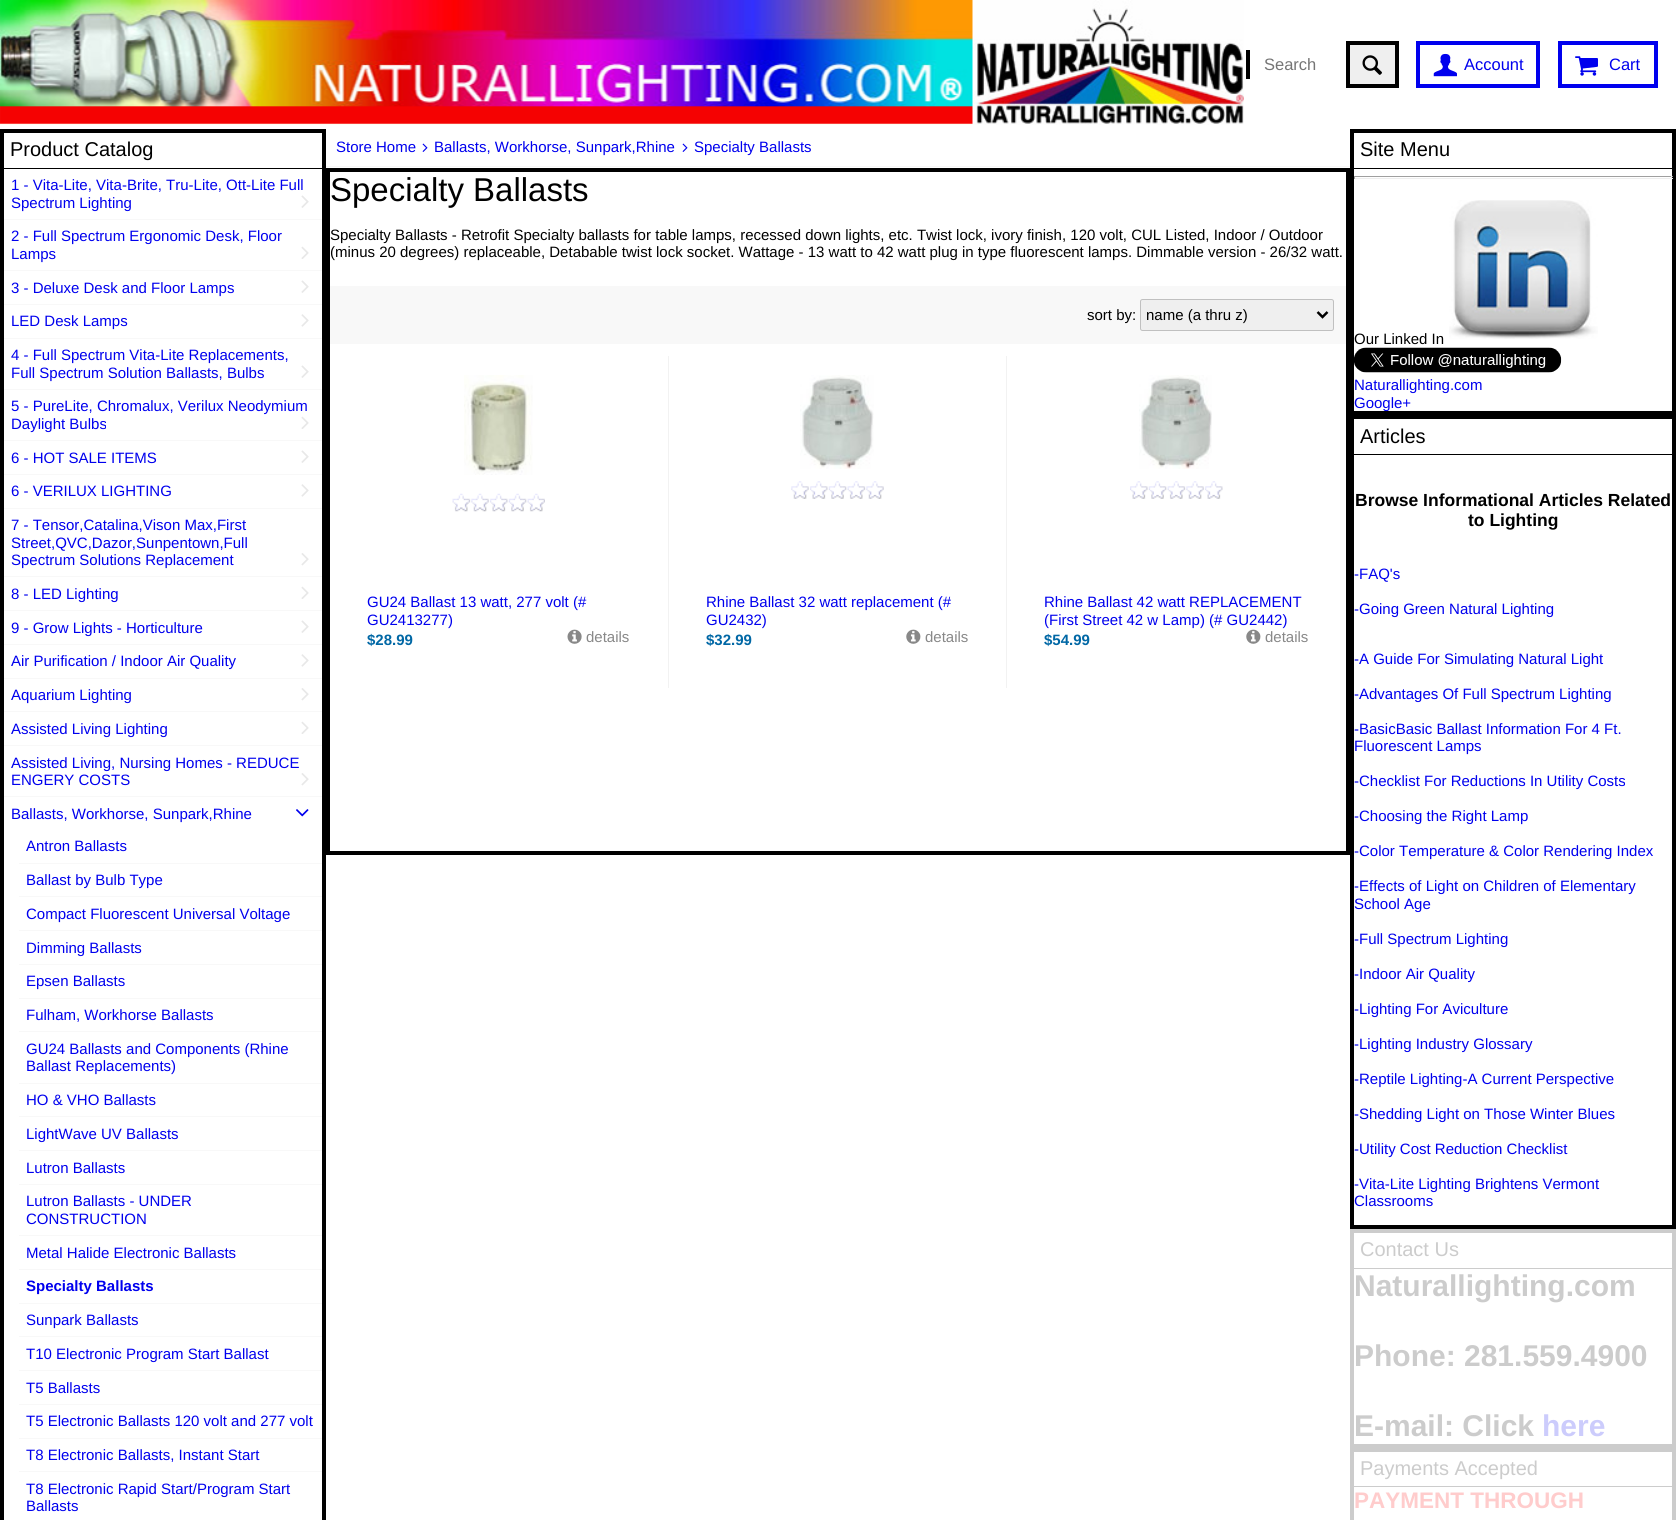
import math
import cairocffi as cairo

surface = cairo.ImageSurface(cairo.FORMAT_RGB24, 1676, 1520)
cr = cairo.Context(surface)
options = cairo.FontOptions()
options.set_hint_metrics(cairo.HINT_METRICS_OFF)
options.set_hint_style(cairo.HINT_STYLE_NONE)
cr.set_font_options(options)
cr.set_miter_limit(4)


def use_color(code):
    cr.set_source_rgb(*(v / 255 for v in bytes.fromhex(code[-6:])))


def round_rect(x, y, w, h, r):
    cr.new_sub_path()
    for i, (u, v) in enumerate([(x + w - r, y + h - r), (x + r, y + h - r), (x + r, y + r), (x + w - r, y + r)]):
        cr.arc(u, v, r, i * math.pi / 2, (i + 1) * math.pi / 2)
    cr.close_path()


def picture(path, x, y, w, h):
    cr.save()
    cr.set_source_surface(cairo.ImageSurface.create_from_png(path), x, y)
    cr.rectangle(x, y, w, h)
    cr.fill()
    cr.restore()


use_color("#ffffff")
cr.paint()
picture("img1.png", 0, 0, 1244, 125)
use_color("#000000")
cr.rectangle(1246, 50, 4, 29)
cr.fill()
cr.select_font_face("Liberation Sans")
cr.set_font_size(16.5)
use_color("#757575")
cr.move_to(1264, 70)
cr.show_text("Search")
use_color("#efefef")
cr.rectangle(1348, 43, 49, 43)
cr.fill_preserve()
use_color("#000000")
cr.set_line_width(4)
cr.stroke()
picture("img2.png", 1362, 55, 20, 20)
cr.rectangle(1418, 43, 120, 43)
use_color("#0000ee")
cr.stroke()
picture("img3.png", 1433, 53, 24, 24)
cr.move_to(1464, 70)
cr.show_text("Account")
cr.rectangle(1560, 43, 96, 43)
cr.stroke()
picture("img4.png", 1575, 56, 23, 20)
cr.move_to(1609, 70)
cr.show_text("Cart")
cr.rectangle(2, 131, 322, 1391)
use_color("#000000")
cr.stroke()
cr.rectangle(4, 168, 319, 1)
cr.fill()
cr.set_font_size(20)
cr.move_to(10, 156)
cr.show_text("Product Catalog")
cr.set_font_size(15)
use_color("#0000ee")
cr.move_to(11, 190)
cr.show_text("1 - Vita-Lite, Vita-Brite, Tru-Lite, Ott-Lite Full")
cr.move_to(11, 208)
cr.show_text("Spectrum Lighting")
picture("img5.png", 301, 195, 8, 13)
cr.set_source_rgba(0, 0, 0, 0.03)
cr.rectangle(4, 219, 319, 1)
cr.fill()
use_color("#0000ee")
cr.move_to(11, 241)
cr.show_text("2 - Full Spectrum Ergonomic Desk, Floor")
cr.move_to(11, 259)
cr.show_text("Lamps")
picture("img6.png", 301, 246, 8, 13)
cr.set_source_rgba(0, 0, 0, 0.03)
cr.rectangle(4, 270, 319, 1)
cr.fill()
use_color("#0000ee")
cr.move_to(11, 293)
cr.show_text("3 - Deluxe Desk and Floor Lamps")
picture("img5.png", 301, 280, 8, 13)
cr.set_source_rgba(0, 0, 0, 0.03)
cr.rectangle(4, 304, 319, 1)
cr.fill()
use_color("#0000ee")
cr.move_to(11, 326)
cr.show_text("LED Desk Lamps")
picture("img7.png", 301, 314, 8, 13)
cr.set_source_rgba(0, 0, 0, 0.03)
cr.rectangle(4, 338, 319, 1)
cr.fill()
use_color("#0000ee")
cr.move_to(11, 360)
cr.show_text("4 - Full Spectrum Vita-Lite Replacements,")
cr.move_to(11, 378)
cr.show_text("Full Spectrum Solution Ballasts, Bulbs")
picture("img5.png", 301, 365, 8, 13)
cr.set_source_rgba(0, 0, 0, 0.03)
cr.rectangle(4, 389, 319, 1)
cr.fill()
use_color("#0000ee")
cr.move_to(11, 411)
cr.show_text("5 - PureLite, Chromalux, Verilux Neodymium")
cr.move_to(11, 429)
cr.show_text("Daylight Bulbs")
picture("img6.png", 301, 416, 8, 13)
cr.set_source_rgba(0, 0, 0, 0.03)
cr.rectangle(4, 440, 319, 1)
cr.fill()
use_color("#0000ee")
cr.move_to(11, 463)
cr.show_text("6 - HOT SALE ITEMS")
picture("img5.png", 301, 450, 8, 13)
cr.set_source_rgba(0, 0, 0, 0.03)
cr.rectangle(4, 474, 319, 1)
cr.fill()
use_color("#0000ee")
cr.move_to(11, 496)
cr.show_text("6 - VERILUX LIGHTING")
picture("img7.png", 301, 484, 8, 13)
cr.set_source_rgba(0, 0, 0, 0.03)
cr.rectangle(4, 508, 319, 1)
cr.fill()
use_color("#0000ee")
cr.move_to(11, 530)
cr.show_text("7 - Tensor,Catalina,Vison Max,First")
cr.move_to(11, 548)
cr.show_text("Street,QVC,Dazor,Sunpentown,Full")
cr.move_to(11, 565)
cr.show_text("Spectrum Solutions Replacement")
picture("img8.png", 301, 553, 8, 13)
cr.set_source_rgba(0, 0, 0, 0.03)
cr.rectangle(4, 576, 319, 1)
cr.fill()
use_color("#0000ee")
cr.move_to(11, 599)
cr.show_text("8 - LED Lighting")
picture("img6.png", 301, 586, 8, 13)
cr.set_source_rgba(0, 0, 0, 0.03)
cr.rectangle(4, 610, 319, 1)
cr.fill()
use_color("#0000ee")
cr.move_to(11, 633)
cr.show_text("9 - Grow Lights - Horticulture")
picture("img5.png", 301, 620, 8, 13)
cr.set_source_rgba(0, 0, 0, 0.03)
cr.rectangle(4, 644, 319, 1)
cr.fill()
use_color("#0000ee")
cr.move_to(11, 666)
cr.show_text("Air Purification / Indoor Air Quality")
picture("img7.png", 301, 654, 8, 13)
cr.set_source_rgba(0, 0, 0, 0.03)
cr.rectangle(4, 678, 319, 1)
cr.fill()
use_color("#0000ee")
cr.move_to(11, 700)
cr.show_text("Aquarium Lighting")
picture("img8.png", 301, 688, 8, 13)
cr.set_source_rgba(0, 0, 0, 0.03)
cr.rectangle(4, 711, 319, 1)
cr.fill()
use_color("#0000ee")
cr.move_to(11, 734)
cr.show_text("Assisted Living Lighting")
picture("img6.png", 301, 721, 8, 13)
cr.set_source_rgba(0, 0, 0, 0.03)
cr.rectangle(4, 745, 319, 1)
cr.fill()
use_color("#0000ee")
cr.move_to(11, 768)
cr.show_text("Assisted Living, Nursing Homes - REDUCE")
cr.move_to(11, 785)
cr.show_text("ENGERY COSTS")
picture("img8.png", 301, 773, 8, 13)
cr.set_source_rgba(0, 0, 0, 0.03)
cr.rectangle(4, 796, 319, 1)
cr.fill()
use_color("#0000ee")
cr.move_to(11, 819)
cr.show_text("Ballasts, Workhorse, Sunpark,Rhine")
picture("img9.png", 296, 809, 13, 8)
cr.move_to(26, 851)
cr.show_text("Antron Ballasts")
cr.set_source_rgba(0, 0, 0, 0.03)
cr.rectangle(19, 863, 304, 1)
cr.fill()
use_color("#0000ee")
cr.move_to(26, 885)
cr.show_text("Ballast by Bulb Type")
cr.set_source_rgba(0, 0, 0, 0.03)
cr.rectangle(19, 896, 304, 1)
cr.fill()
use_color("#0000ee")
cr.move_to(26, 919)
cr.show_text("Compact Fluorescent Universal Voltage")
cr.set_source_rgba(0, 0, 0, 0.03)
cr.rectangle(19, 930, 304, 1)
cr.fill()
use_color("#0000ee")
cr.move_to(26, 953)
cr.show_text("Dimming Ballasts")
cr.set_source_rgba(0, 0, 0, 0.03)
cr.rectangle(19, 964, 304, 1)
cr.fill()
use_color("#0000ee")
cr.move_to(26, 986)
cr.show_text("Epsen Ballasts")
cr.set_source_rgba(0, 0, 0, 0.03)
cr.rectangle(19, 998, 304, 1)
cr.fill()
use_color("#0000ee")
cr.move_to(26, 1020)
cr.show_text("Fulham, Workhorse Ballasts")
cr.set_source_rgba(0, 0, 0, 0.03)
cr.rectangle(19, 1031, 304, 1)
cr.fill()
use_color("#0000ee")
cr.move_to(26, 1054)
cr.show_text("GU24 Ballasts and Components (Rhine")
cr.move_to(26, 1071)
cr.show_text("Ballast Replacements)")
cr.set_source_rgba(0, 0, 0, 0.03)
cr.rectangle(19, 1083, 304, 1)
cr.fill()
use_color("#0000ee")
cr.move_to(26, 1105)
cr.show_text("HO & VHO Ballasts")
cr.set_source_rgba(0, 0, 0, 0.03)
cr.rectangle(19, 1116, 304, 1)
cr.fill()
use_color("#0000ee")
cr.move_to(26, 1139)
cr.show_text("LightWave UV Ballasts")
cr.set_source_rgba(0, 0, 0, 0.03)
cr.rectangle(19, 1150, 304, 1)
cr.fill()
use_color("#0000ee")
cr.move_to(26, 1173)
cr.show_text("Lutron Ballasts")
cr.set_source_rgba(0, 0, 0, 0.03)
cr.rectangle(19, 1184, 304, 1)
cr.fill()
use_color("#0000ee")
cr.move_to(26, 1206)
cr.show_text("Lutron Ballasts - UNDER")
cr.move_to(26, 1224)
cr.show_text("CONSTRUCTION")
cr.set_source_rgba(0, 0, 0, 0.03)
cr.rectangle(19, 1235, 304, 1)
cr.fill()
use_color("#0000ee")
cr.move_to(26, 1258)
cr.show_text("Metal Halide Electronic Ballasts")
cr.set_source_rgba(0, 0, 0, 0.03)
cr.rectangle(19, 1269, 304, 1)
cr.fill()
cr.select_font_face("Liberation Sans", cairo.FONT_SLANT_NORMAL, cairo.FONT_WEIGHT_BOLD)
use_color("#0000ee")
cr.move_to(26, 1291)
cr.show_text("Specialty Ballasts")
cr.set_source_rgba(0, 0, 0, 0.03)
cr.rectangle(19, 1303, 304, 1)
cr.fill()
cr.select_font_face("Liberation Sans")
use_color("#0000ee")
cr.move_to(26, 1325)
cr.show_text("Sunpark Ballasts")
cr.set_source_rgba(0, 0, 0, 0.03)
cr.rectangle(19, 1336, 304, 1)
cr.fill()
use_color("#0000ee")
cr.move_to(26, 1359)
cr.show_text("T10 Electronic Program Start Ballast")
cr.set_source_rgba(0, 0, 0, 0.03)
cr.rectangle(19, 1370, 304, 1)
cr.fill()
use_color("#0000ee")
cr.move_to(26, 1393)
cr.show_text("T5 Ballasts")
cr.set_source_rgba(0, 0, 0, 0.03)
cr.rectangle(19, 1404, 304, 1)
cr.fill()
use_color("#0000ee")
cr.move_to(26, 1426)
cr.show_text("T5 Electronic Ballasts 120 volt and 277 volt")
cr.set_source_rgba(0, 0, 0, 0.03)
cr.rectangle(19, 1438, 304, 1)
cr.fill()
use_color("#0000ee")
cr.move_to(26, 1460)
cr.show_text("T8 Electronic Ballasts, Instant Start")
cr.set_source_rgba(0, 0, 0, 0.03)
cr.rectangle(19, 1471, 304, 1)
cr.fill()
use_color("#0000ee")
cr.move_to(26, 1494)
cr.show_text("T8 Electronic Rapid Start/Program Start")
cr.move_to(26, 1511)
cr.show_text("Ballasts")
cr.rectangle(1352, 131, 322, 282)
use_color("#000000")
cr.stroke()
cr.rectangle(1354, 168, 319, 1)
cr.fill()
cr.set_font_size(20)
cr.move_to(1360, 156)
cr.show_text("Site Menu")
use_color("#9f9f9f")
cr.rectangle(1354, 176, 319, 1)
cr.fill()
use_color("#eeeeee")
cr.rectangle(1671, 176, 1, 3)
cr.fill()
cr.rectangle(1354, 178, 319, 1)
cr.fill()
use_color("#9f9f9f")
cr.rectangle(1354, 176, 1, 3)
cr.fill()
cr.set_font_size(15)
use_color("#000000")
cr.move_to(1354, 344)
cr.show_text("Our Linked In")
picture("img10.png", 1449, 200, 149, 139)
picture("img11.png", 1354, 347, 208, 26)
use_color("#0000ee")
cr.move_to(1354, 390)
cr.show_text("Naturallighting.com")
cr.move_to(1354, 408)
cr.show_text("Google+")
cr.rectangle(1352, 417, 322, 810)
use_color("#000000")
cr.stroke()
cr.rectangle(1354, 454, 319, 1)
cr.fill()
cr.set_font_size(20)
cr.move_to(1360, 443)
cr.show_text("Articles")
cr.select_font_face("Liberation Sans", cairo.FONT_SLANT_NORMAL, cairo.FONT_WEIGHT_BOLD)
cr.set_font_size(17.5)
cr.move_to(1355, 506)
cr.show_text("Browse Informational Articles Related")
cr.move_to(1468, 526)
cr.show_text("to Lighting")
cr.select_font_face("Liberation Sans")
cr.set_font_size(15)
use_color("#0000ee")
cr.move_to(1354, 579)
cr.show_text("-FAQ's")
cr.move_to(1354, 614)
cr.show_text("-Going Green Natural Lighting")
cr.move_to(1354, 664)
cr.show_text("-A Guide For Simulating Natural Light")
cr.move_to(1354, 699)
cr.show_text("-Advantages Of Full Spectrum Lighting")
cr.move_to(1354, 734)
cr.show_text("-BasicBasic Ballast Information For 4 Ft.")
cr.move_to(1354, 751)
cr.show_text("Fluorescent Lamps")
cr.move_to(1354, 786)
cr.show_text("-Checklist For Reductions In Utility Costs")
cr.move_to(1354, 821)
cr.show_text("-Choosing the Right Lamp")
cr.move_to(1354, 856)
cr.show_text("-Color Temperature & Color Rendering Index")
cr.move_to(1354, 891)
cr.show_text("-Effects of Light on Children of Elementary")
cr.move_to(1354, 909)
cr.show_text("School Age")
cr.move_to(1354, 944)
cr.show_text("-Full Spectrum Lighting")
cr.move_to(1354, 979)
cr.show_text("-Indoor Air Quality")
cr.move_to(1354, 1014)
cr.show_text("-Lighting For Aviculture")
cr.move_to(1354, 1049)
cr.show_text("-Lighting Industry Glossary")
cr.move_to(1354, 1084)
cr.show_text("-Reptile Lighting-A Current Perspective")
cr.move_to(1354, 1119)
cr.show_text("-Shedding Light on Those Winter Blues")
cr.move_to(1354, 1154)
cr.show_text("-Utility Cost Reduction Checklist")
cr.move_to(1354, 1189)
cr.show_text("-Vita-Lite Lighting Brightens Vermont")
cr.move_to(1354, 1206)
cr.show_text("Classrooms")
cr.rectangle(1352, 1231, 322, 215)
use_color("#cccccc")
cr.stroke()
cr.rectangle(1354, 1268, 319, 1)
cr.fill()
cr.set_font_size(20)
cr.move_to(1360, 1256)
cr.show_text("Contact Us")
cr.select_font_face("Liberation Sans", cairo.FONT_SLANT_NORMAL, cairo.FONT_WEIGHT_BOLD)
cr.set_font_size(30)
cr.move_to(1354, 1296)
cr.show_text("Naturallighting.com")
cr.move_to(1354, 1366)
cr.show_text("Phone: 281.559.4900")
cr.move_to(1354, 1436)
cr.show_text("E-mail: Click")
use_color("#ccccfc")
cr.move_to(1542, 1436)
cr.show_text("here")
cr.rectangle(1352, 1450, 322, 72)
use_color("#cccccc")
cr.stroke()
cr.rectangle(1354, 1486, 319, 1)
cr.fill()
cr.select_font_face("Liberation Sans")
cr.set_font_size(20)
cr.move_to(1360, 1475)
cr.show_text("Payments Accepted")
cr.select_font_face("Liberation Sans", cairo.FONT_SLANT_NORMAL, cairo.FONT_WEIGHT_BOLD)
cr.set_font_size(22.5)
use_color("#ffcccc")
cr.move_to(1354, 1508)
cr.show_text("PAYMENT THROUGH")
use_color("#f7f7f7")
cr.rectangle(326, 166, 1024, 1)
cr.fill()
cr.select_font_face("Liberation Sans")
cr.set_font_size(15)
use_color("#0000ee")
cr.move_to(336, 152)
cr.show_text("Store Home")
picture("img12.png", 422, 143, 6, 9)
cr.move_to(434, 152)
cr.show_text("Ballasts, Workhorse, Sunpark,Rhine")
picture("img12.png", 682, 143, 6, 9)
cr.move_to(694, 152)
cr.show_text("Specialty Ballasts")
cr.rectangle(328, 170, 1020, 683)
use_color("#000000")
cr.stroke()
cr.set_font_size(33)
cr.move_to(330, 201)
cr.show_text("Specialty Ballasts")
cr.set_font_size(15)
cr.move_to(330, 240)
cr.show_text("Specialty Ballasts - Retrofit Specialty ballasts for table lamps, recessed down lights, etc. Twist lock, ivory finish, 120 volt, CUL Listed, Indoor / Outdoor")
cr.move_to(330, 257)
cr.show_text("(minus 20 degrees) replaceable, Detabable twist lock socket. Wattage - 13 watt to 42 watt plug in type fluorescent lamps. Dimmable version - 26/32 watt.")
use_color("#f8f8f8")
cr.rectangle(330, 286, 1016, 58)
cr.fill()
use_color("#000000")
cr.move_to(1087, 320)
cr.show_text("sort by:")
use_color("#efefef")
round_rect(1140.5, 299.5, 193, 31, 2)
cr.fill_preserve()
use_color("#c0c0c0")
cr.set_line_width(1)
cr.stroke()
cr.new_path()
cr.move_to(1317.5, 312)
cr.line_to(1322.5, 317)
cr.line_to(1327.5, 312)
use_color("#000000")
cr.set_line_width(2.5)
cr.stroke()
cr.move_to(1146, 320)
cr.show_text("name (a thru z)")
use_color("#f2f2f2")
cr.rectangle(668, 356, 1, 332)
cr.fill()
picture("img13.png", 464, 375, 69, 100)
picture("img14.png", 452, 493, 93, 19)
use_color("#0000ee")
cr.move_to(367, 607)
cr.show_text("GU24 Ballast 13 watt, 277 volt (#")
cr.move_to(367, 625)
cr.show_text("GU2413277)")
cr.select_font_face("Liberation Sans", cairo.FONT_SLANT_NORMAL, cairo.FONT_WEIGHT_BOLD)
use_color("#0067a5")
cr.move_to(367, 645)
cr.show_text("$28.99")
picture("img15.png", 567, 629, 15, 15)
cr.select_font_face("Liberation Sans")
use_color("#888888")
cr.move_to(586, 642)
cr.show_text("details")
use_color("#f2f2f2")
cr.rectangle(1006, 356, 1, 332)
cr.fill()
picture("img16.png", 800, 375, 74, 94)
picture("img17.png", 791, 481, 93, 18)
use_color("#0000ee")
cr.move_to(706, 607)
cr.show_text("Rhine Ballast 32 watt replacement (#")
cr.move_to(706, 625)
cr.show_text("GU2432)")
cr.select_font_face("Liberation Sans", cairo.FONT_SLANT_NORMAL, cairo.FONT_WEIGHT_BOLD)
use_color("#0067a5")
cr.move_to(706, 645)
cr.show_text("$32.99")
picture("img18.png", 906, 629, 15, 15)
cr.select_font_face("Liberation Sans")
use_color("#888888")
cr.move_to(925, 642)
cr.show_text("details")
picture("img19.png", 1139, 375, 73, 94)
picture("img20.png", 1130, 481, 93, 18)
use_color("#0000ee")
cr.move_to(1044, 607)
cr.show_text("Rhine Ballast 42 watt REPLACEMENT")
cr.move_to(1044, 625)
cr.show_text("(First Street 42 w Lamp) (# GU2442)")
cr.select_font_face("Liberation Sans", cairo.FONT_SLANT_NORMAL, cairo.FONT_WEIGHT_BOLD)
use_color("#0067a5")
cr.move_to(1044, 645)
cr.show_text("$54.99")
picture("img18.png", 1246, 629, 15, 15)
cr.select_font_face("Liberation Sans")
use_color("#888888")
cr.move_to(1265, 642)
cr.show_text("details")
surface.write_to_png("result.png")
